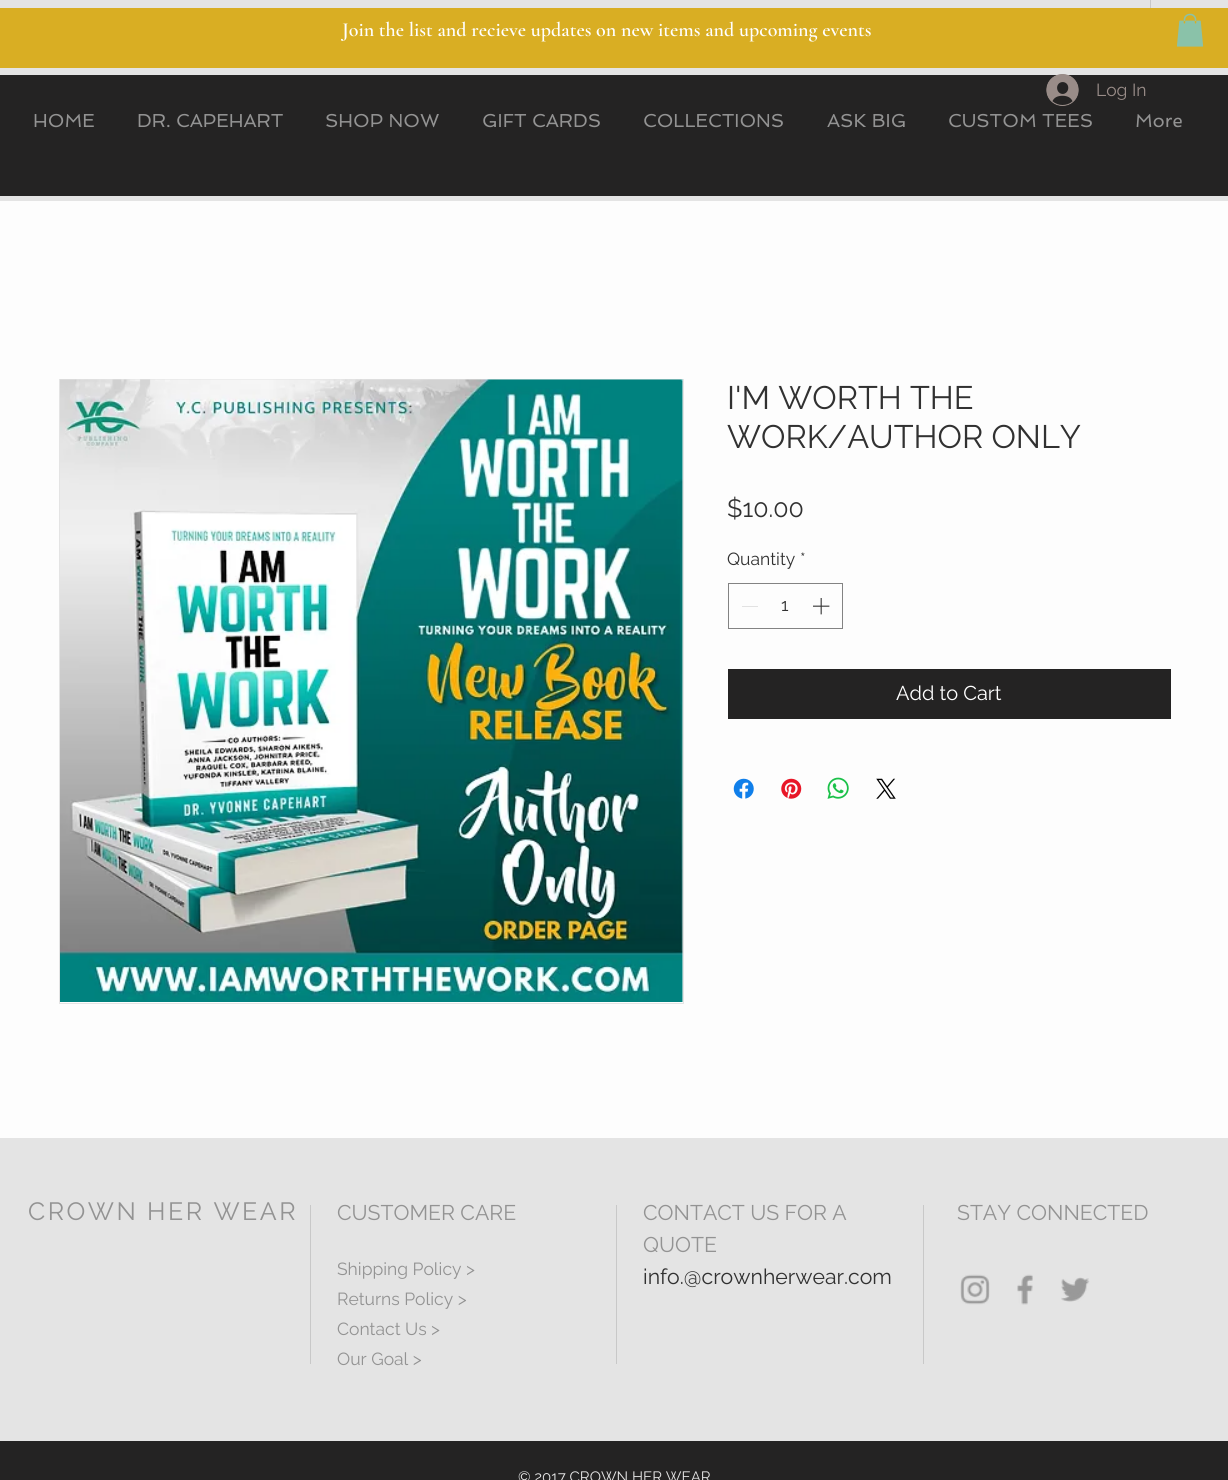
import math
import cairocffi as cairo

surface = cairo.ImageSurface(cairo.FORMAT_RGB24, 1228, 1480)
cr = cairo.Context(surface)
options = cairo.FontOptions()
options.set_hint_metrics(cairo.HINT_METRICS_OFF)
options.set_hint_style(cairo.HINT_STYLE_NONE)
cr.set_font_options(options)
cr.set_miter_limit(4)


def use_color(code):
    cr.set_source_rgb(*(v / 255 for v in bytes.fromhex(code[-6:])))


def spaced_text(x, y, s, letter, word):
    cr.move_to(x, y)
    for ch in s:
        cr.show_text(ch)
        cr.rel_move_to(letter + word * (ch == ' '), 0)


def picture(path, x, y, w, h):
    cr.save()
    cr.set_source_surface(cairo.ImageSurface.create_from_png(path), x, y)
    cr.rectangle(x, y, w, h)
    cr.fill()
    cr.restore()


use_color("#fdfdfd")
cr.paint()
use_color("#e4e4e4")
cr.rectangle(0, 0, 1228, 201)
cr.fill()
use_color("#c8c8c8")
cr.rectangle(1150, 0, 1, 8)
cr.fill()
use_color("#d9ae23")
cr.rectangle(0, 8, 1228, 60)
cr.fill()
cr.select_font_face("Cormorant Garamond SemiBold")
cr.set_font_size(20)
use_color("#ffffff")
cr.move_to(342, 36)
cr.show_text("Join the list and recieve updates on new items and upcoming events")
picture("img1.png", 1177, 13, 27, 34)
use_color("#242323")
cr.rectangle(0, 75, 1228, 121)
cr.fill()
picture("img2.png", 1046, 74, 33, 32)
cr.select_font_face("Raleway")
cr.set_font_size(17.5)
use_color("#998c88")
cr.move_to(1096, 96)
cr.show_text("Log In")
cr.select_font_face("Spinnaker")
cr.set_font_size(18.75)
use_color("#939393")
cr.move_to(33, 127)
cr.show_text("HOME")
cr.move_to(137, 127)
cr.show_text("DR. CAPEHART")
cr.move_to(325, 127)
cr.show_text("SHOP NOW")
cr.move_to(482, 127)
cr.show_text("GIFT CARDS")
cr.move_to(643, 127)
cr.show_text("COLLECTIONS")
cr.move_to(827, 127)
cr.show_text("ASK BIG")
cr.move_to(948, 127)
cr.show_text("CUSTOM TEES")
cr.move_to(1135, 127)
cr.show_text("More")
cr.rectangle(59.5, 379.5, 624, 624)
use_color("#e4e4e4")
cr.set_line_width(1)
cr.stroke()
picture("img3.png", 60, 379, 623, 623)
cr.select_font_face("Raleway")
cr.set_font_size(32.5)
use_color("#313131")
cr.move_to(727, 409)
cr.show_text("I'M WORTH THE")
cr.move_to(727, 448)
cr.show_text("WORK/AUTHOR ONLY")
cr.set_font_size(25)
cr.move_to(727, 517)
cr.show_text("$10.00")
cr.set_font_size(17.5)
cr.move_to(727, 565)
cr.show_text("Quantity")
cr.move_to(800, 565)
cr.show_text("*")
cr.rectangle(728.5, 583.5, 114, 45)
use_color("#838383")
cr.stroke()
use_color("#e2e2e2")
cr.rectangle(742, 606, 16, 1)
cr.fill()
use_color("#313131")
cr.move_to(781, 611)
cr.show_text("1")
picture("img4.png", 813, 598, 17, 17)
use_color("#242323")
cr.rectangle(728, 669, 443, 50)
cr.fill()
cr.set_font_size(20)
use_color("#ffffff")
cr.move_to(896, 700)
cr.show_text("Add to Cart")
picture("img5.png", 733, 778, 21, 21)
picture("img6.png", 781, 778, 21, 21)
picture("img7.png", 827, 777, 22, 22)
picture("img8.png", 876, 778, 20, 21)
use_color("#e4e4e4")
cr.rectangle(0, 1138, 1228, 303)
cr.fill()
cr.set_font_size(25)
use_color("#939393")
spaced_text(28, 1220, "CROWN HER WEAR", 2.5, 0)
use_color("#c8c8c8")
cr.rectangle(310, 1205, 1, 159)
cr.fill()
cr.set_font_size(21.25)
use_color("#939393")
cr.move_to(337, 1220)
cr.show_text("CUSTOMER CARE")
cr.set_font_size(17.5)
cr.move_to(337, 1275)
cr.show_text("Shipping Policy >")
cr.move_to(337, 1305)
cr.show_text("Returns Policy >")
cr.move_to(337, 1335)
cr.show_text("Contact Us >")
cr.move_to(337, 1365)
cr.show_text("Our Goal >")
use_color("#c8c8c8")
cr.rectangle(616, 1205, 1, 159)
cr.fill()
cr.set_font_size(21.25)
use_color("#939393")
cr.move_to(643, 1220)
cr.show_text("CONTACT US FOR A")
cr.move_to(643, 1252)
cr.show_text("QUOTE")
use_color("#313131")
cr.move_to(643, 1284)
cr.show_text("info.@crownherwear.com")
use_color("#c8c8c8")
cr.rectangle(923, 1205, 1, 159)
cr.fill()
use_color("#939393")
cr.move_to(957, 1220)
cr.show_text("STAY CONNECTED")
picture("img9.png", 960, 1274, 30, 31)
picture("img10.png", 1017, 1274, 16, 31)
picture("img11.png", 1061, 1277, 29, 25)
use_color("#242323")
cr.rectangle(0, 1441, 1228, 39)
cr.fill()
cr.set_font_size(15)
use_color("#e4e4e4")
cr.move_to(518, 1482)
cr.show_text("© 2017 CROWN HER WEAR")
surface.write_to_png("result.png")
